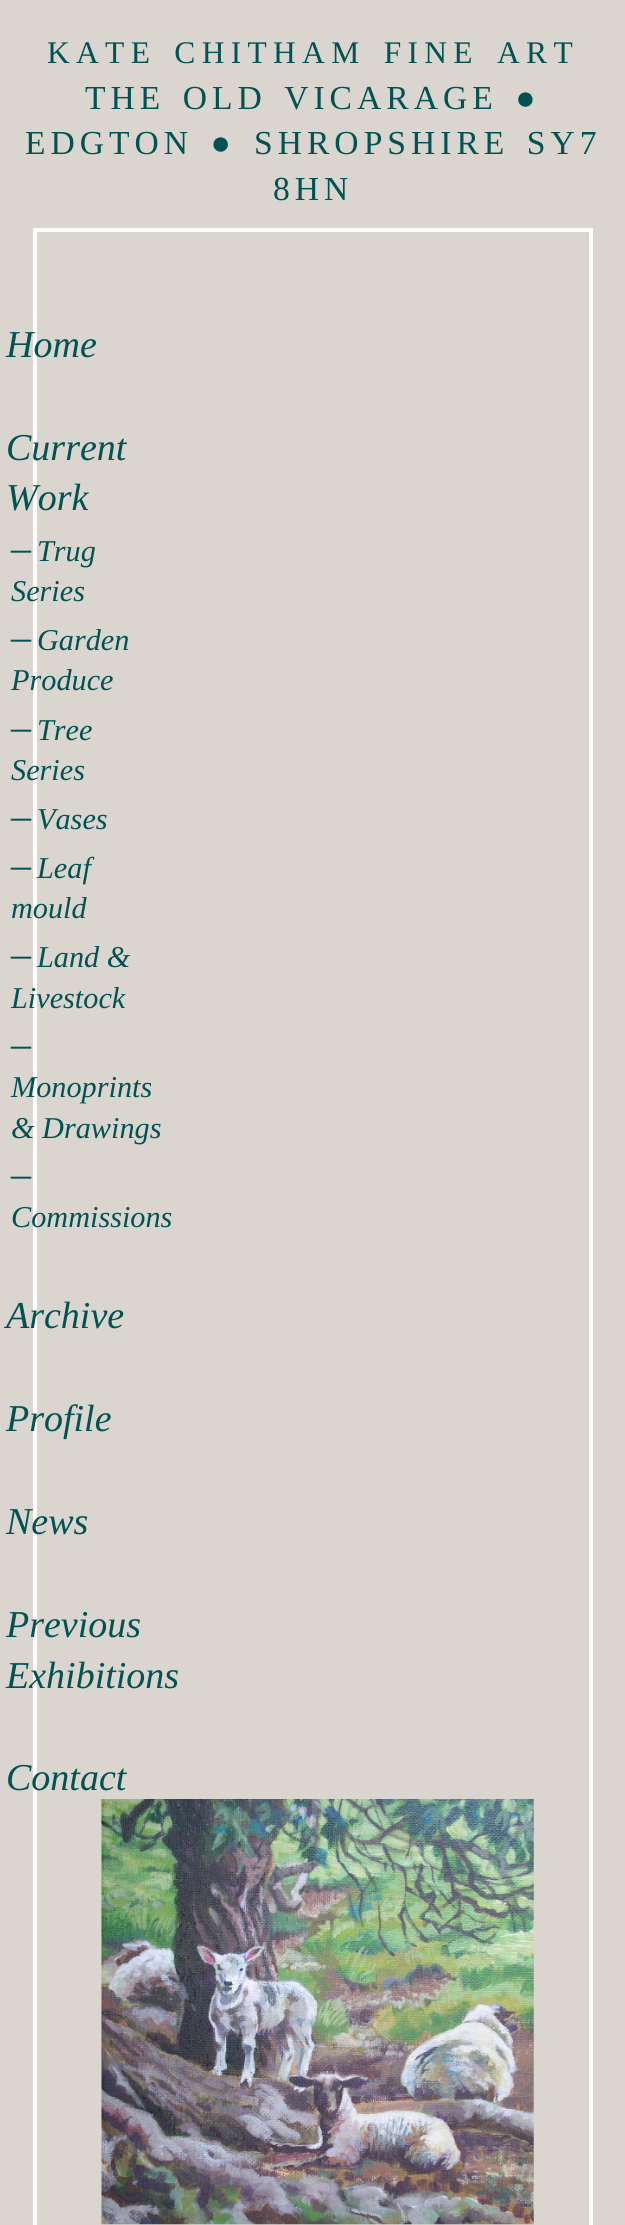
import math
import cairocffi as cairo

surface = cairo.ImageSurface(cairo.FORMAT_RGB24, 625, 2225)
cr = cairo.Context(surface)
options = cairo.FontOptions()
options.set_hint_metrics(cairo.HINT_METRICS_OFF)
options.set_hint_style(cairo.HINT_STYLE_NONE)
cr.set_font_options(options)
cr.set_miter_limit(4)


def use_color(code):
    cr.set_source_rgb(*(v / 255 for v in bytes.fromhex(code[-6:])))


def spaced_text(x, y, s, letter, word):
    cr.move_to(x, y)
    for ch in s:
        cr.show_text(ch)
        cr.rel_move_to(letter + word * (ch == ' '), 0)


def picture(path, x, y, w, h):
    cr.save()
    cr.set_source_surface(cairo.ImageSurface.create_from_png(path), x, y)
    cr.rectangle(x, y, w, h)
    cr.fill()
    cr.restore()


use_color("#dad5ce")
cr.paint()
cr.select_font_face("Liberation Serif")
cr.set_font_size(31.5)
use_color("#015353")
spaced_text(47, 63, "KATE CHITHAM FINE ART", 6.3, 4)
cr.set_font_size(33.6)
spaced_text(85, 109, "THE OLD VICARAGE ●", 5, 4)
spaced_text(25, 154, "EDGTON ●", 5, 4)
spaced_text(254, 154, "SHROPSHIRE SY7", 5, 4)
spaced_text(273, 200, "8HN", 5, 0)
cr.rectangle(35, 230, 556, 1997)
use_color("#ffffff")
cr.set_line_width(4)
cr.stroke()
picture("img1.png", 101, 1799, 433, 426)
cr.select_font_face("Liberation Serif", cairo.FONT_SLANT_ITALIC)
cr.set_font_size(38)
use_color("#015353")
cr.move_to(6, 357)
cr.show_text("Home")
cr.move_to(6, 460)
cr.show_text("Current")
cr.move_to(6, 510)
cr.show_text("Work")
cr.set_font_size(40)
cr.move_to(11, 561)
cr.show_text("–")
cr.set_font_size(30.25)
cr.move_to(37, 561)
cr.show_text("Trug")
cr.move_to(11, 601)
cr.show_text("Series")
cr.set_font_size(40)
cr.move_to(11, 650)
cr.show_text("–")
cr.set_font_size(30.25)
cr.move_to(37, 650)
cr.show_text("Garden")
cr.move_to(11, 690)
cr.show_text("Produce")
cr.set_font_size(40)
cr.move_to(11, 740)
cr.show_text("–")
cr.set_font_size(30.25)
cr.move_to(37, 740)
cr.show_text("Tree")
cr.move_to(11, 780)
cr.show_text("Series")
cr.set_font_size(40)
cr.move_to(11, 829)
cr.show_text("–")
cr.set_font_size(30.25)
cr.move_to(37, 829)
cr.show_text("Vases")
cr.set_font_size(40)
cr.move_to(11, 878)
cr.show_text("–")
cr.set_font_size(30.25)
cr.move_to(37, 878)
cr.show_text("Leaf")
cr.move_to(11, 918)
cr.show_text("mould")
cr.set_font_size(40)
cr.move_to(11, 967)
cr.show_text("–")
cr.set_font_size(30.25)
cr.move_to(37, 967)
cr.show_text("Land &")
cr.move_to(11, 1008)
cr.show_text("Livestock")
cr.set_font_size(40)
cr.move_to(11, 1057)
cr.show_text("–")
cr.set_font_size(30.25)
cr.move_to(11, 1097)
cr.show_text("Monoprints")
cr.move_to(11, 1138)
cr.show_text("& Drawings")
cr.set_font_size(40)
cr.move_to(11, 1187)
cr.show_text("–")
cr.set_font_size(30.25)
cr.move_to(11, 1227)
cr.show_text("Commissions")
cr.set_font_size(38)
cr.move_to(6, 1328)
cr.show_text("Archive")
cr.move_to(6, 1431)
cr.show_text("Profile")
cr.move_to(6, 1534)
cr.show_text("News")
cr.move_to(6, 1637)
cr.show_text("Previous")
cr.move_to(6, 1688)
cr.show_text("Exhibitions")
cr.move_to(6, 1790)
cr.show_text("Contact")
surface.write_to_png("result.png")
